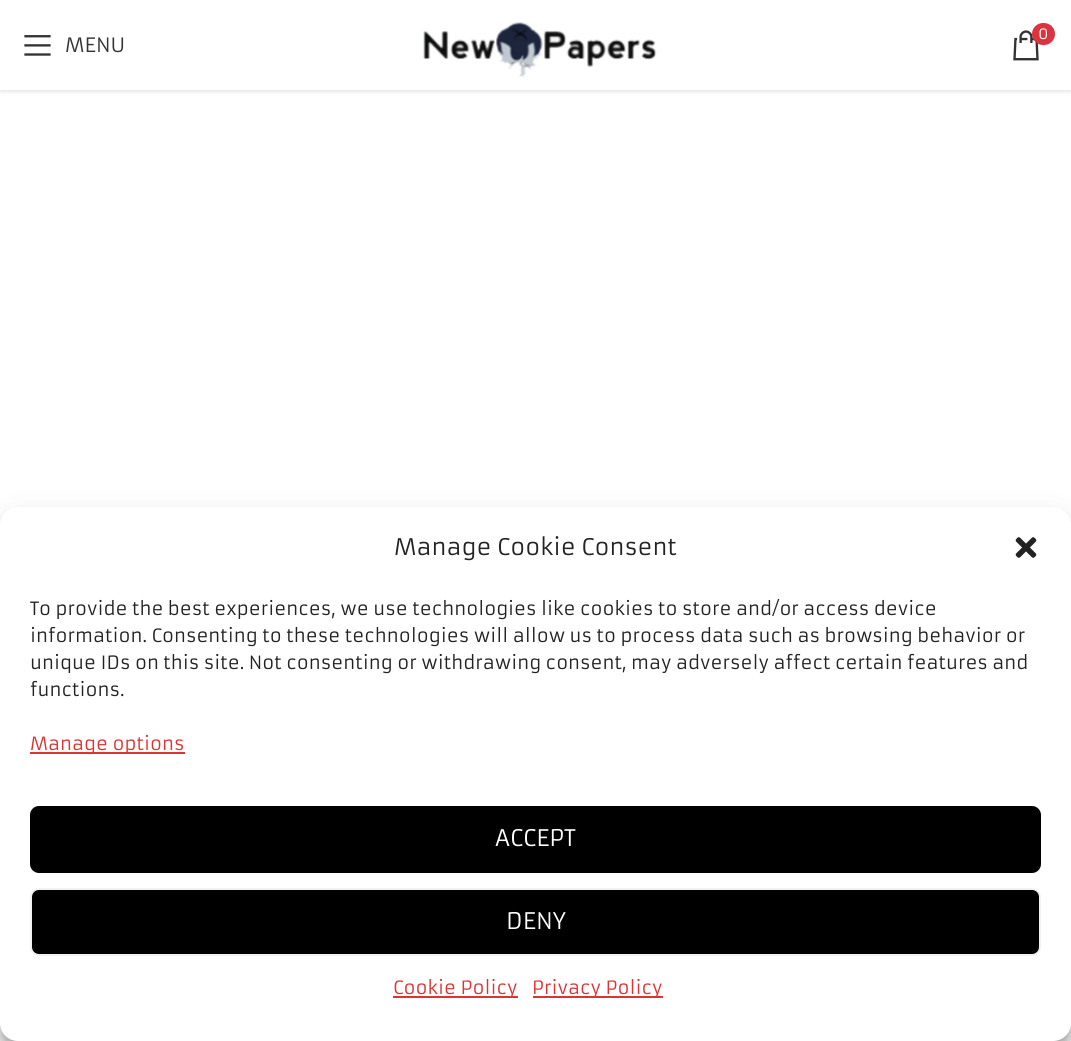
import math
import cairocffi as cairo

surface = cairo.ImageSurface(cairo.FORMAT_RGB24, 1071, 1041)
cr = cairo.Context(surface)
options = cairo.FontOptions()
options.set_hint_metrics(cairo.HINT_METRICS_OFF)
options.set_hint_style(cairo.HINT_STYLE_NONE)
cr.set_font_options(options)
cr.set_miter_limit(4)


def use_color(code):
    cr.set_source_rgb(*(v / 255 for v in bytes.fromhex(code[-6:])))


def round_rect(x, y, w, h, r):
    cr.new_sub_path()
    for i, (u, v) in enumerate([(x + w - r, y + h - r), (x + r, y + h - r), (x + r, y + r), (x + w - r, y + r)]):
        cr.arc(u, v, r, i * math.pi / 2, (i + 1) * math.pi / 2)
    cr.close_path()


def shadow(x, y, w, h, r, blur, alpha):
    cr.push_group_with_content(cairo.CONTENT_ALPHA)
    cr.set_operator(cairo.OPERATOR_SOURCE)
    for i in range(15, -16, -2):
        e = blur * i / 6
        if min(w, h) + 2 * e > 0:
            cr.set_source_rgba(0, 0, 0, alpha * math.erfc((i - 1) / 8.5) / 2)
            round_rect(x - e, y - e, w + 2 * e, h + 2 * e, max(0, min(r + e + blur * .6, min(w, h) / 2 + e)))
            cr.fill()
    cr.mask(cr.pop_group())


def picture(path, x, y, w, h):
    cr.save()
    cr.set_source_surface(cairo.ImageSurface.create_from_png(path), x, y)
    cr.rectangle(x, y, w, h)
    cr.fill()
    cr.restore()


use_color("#ffffff")
cr.paint()
use_color("#000000")
shadow(0, 2, 1071, 90, 0, 2, 0.1)
use_color("#ffffff")
cr.rectangle(0, 0, 1071, 90)
cr.fill()
picture("img1.png", 423, 22, 234, 55)
picture("img2.png", 1013, 30, 26, 31)
use_color("#db3340")
round_rect(1032, 23, 23, 22, 11)
cr.fill()
cr.select_font_face("Armata")
cr.set_font_size(14)
use_color("#ffffff")
cr.move_to(1038, 39)
cr.show_text("0")
picture("img3.png", 24, 35, 27, 21)
cr.set_font_size(19.5)
use_color("#333333")
cr.move_to(65, 52)
cr.show_text("MENU")
use_color("#000000")
shadow(0, 516, 1071, 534, 18, 4.5, 0.23)
shadow(0, 522, 1071, 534, 18, 15, 0.19)
use_color("#ffffff")
round_rect(0, 507, 1071, 534, 18)
cr.fill()
cr.set_font_size(22.5)
use_color("#222222")
cr.move_to(394, 555)
cr.show_text("Manage Cookie Consent")
picture("img4.png", 1015, 537, 22, 21)
cr.set_font_size(18)
cr.move_to(30, 615)
cr.show_text("To provide the best experiences, we use technologies like cookies to store and/or access device")
cr.move_to(30, 642)
cr.show_text("information. Consenting to these technologies will allow us to process data such as browsing behavior or")
cr.move_to(30, 669)
cr.show_text("unique IDs on this site. Not consenting or withdrawing consent, may adversely affect certain features and")
cr.move_to(30, 696)
cr.show_text("functions.")
use_color("#dd3333")
cr.rectangle(30, 752, 155, 2)
cr.fill()
cr.move_to(30, 750)
cr.show_text("Manage options")
use_color("#000000")
round_rect(31, 807, 1009, 65, 8)
cr.fill_preserve()
cr.stroke()
cr.set_font_size(22.5)
use_color("#ffffff")
cr.move_to(495, 846)
cr.show_text("ACCEPT")
use_color("#000000")
round_rect(31, 889, 1009, 66, 8)
cr.fill_preserve()
use_color("#f2f2f2")
cr.stroke()
use_color("#ffffff")
cr.move_to(506, 929)
cr.show_text("DENY")
use_color("#dd3333")
cr.rectangle(393, 996, 125, 2)
cr.fill()
cr.set_font_size(18)
cr.move_to(393, 994)
cr.show_text("Cookie Policy")
cr.rectangle(533, 996, 130, 2)
cr.fill()
cr.move_to(532, 994)
cr.show_text("Privacy Policy")
surface.write_to_png("result.png")
